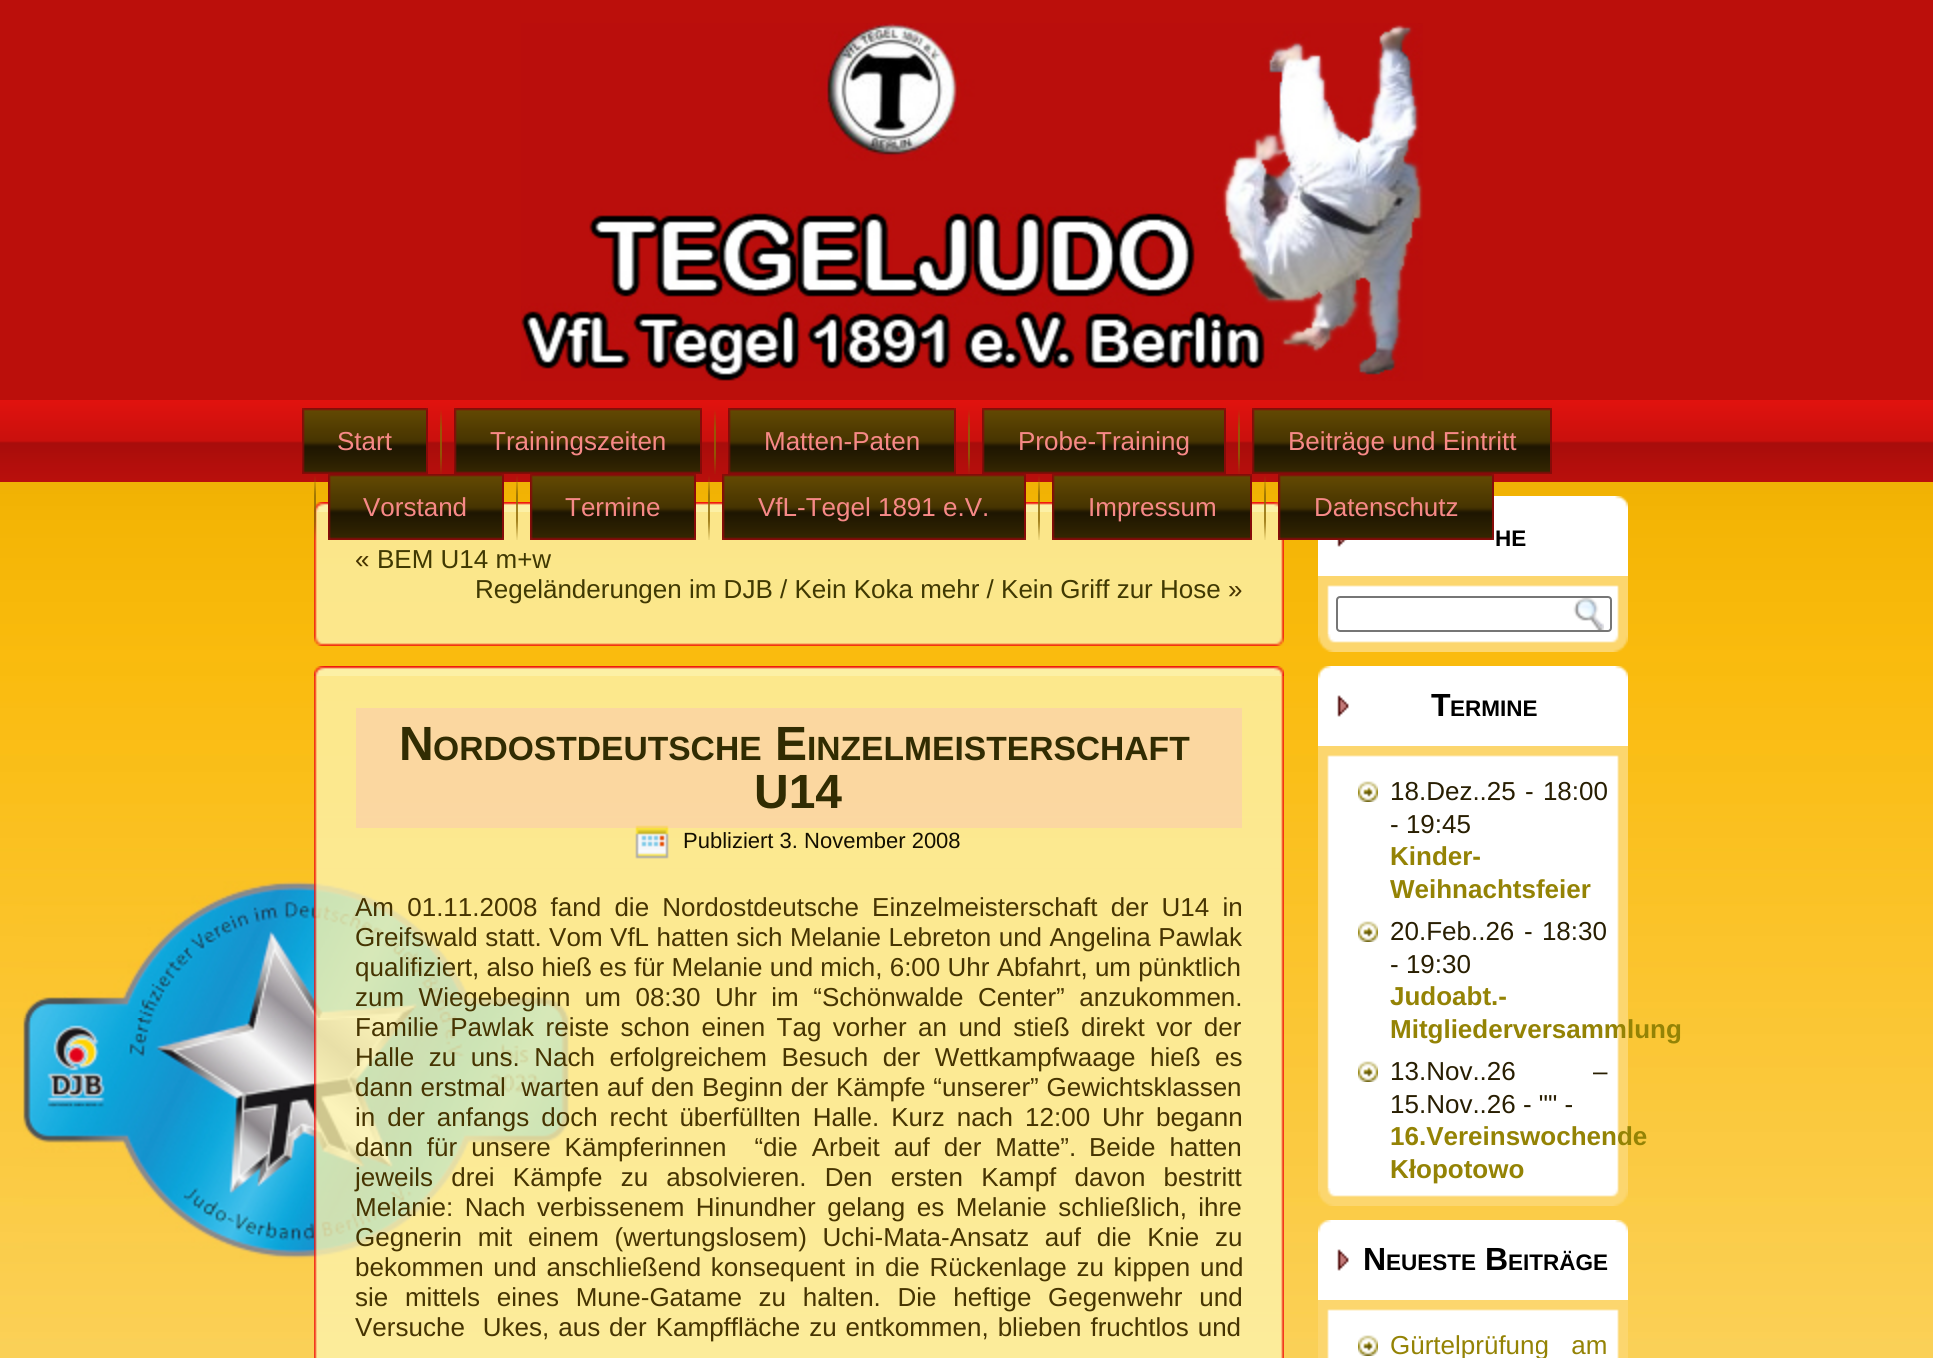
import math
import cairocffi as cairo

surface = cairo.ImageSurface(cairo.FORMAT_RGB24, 1933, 1358)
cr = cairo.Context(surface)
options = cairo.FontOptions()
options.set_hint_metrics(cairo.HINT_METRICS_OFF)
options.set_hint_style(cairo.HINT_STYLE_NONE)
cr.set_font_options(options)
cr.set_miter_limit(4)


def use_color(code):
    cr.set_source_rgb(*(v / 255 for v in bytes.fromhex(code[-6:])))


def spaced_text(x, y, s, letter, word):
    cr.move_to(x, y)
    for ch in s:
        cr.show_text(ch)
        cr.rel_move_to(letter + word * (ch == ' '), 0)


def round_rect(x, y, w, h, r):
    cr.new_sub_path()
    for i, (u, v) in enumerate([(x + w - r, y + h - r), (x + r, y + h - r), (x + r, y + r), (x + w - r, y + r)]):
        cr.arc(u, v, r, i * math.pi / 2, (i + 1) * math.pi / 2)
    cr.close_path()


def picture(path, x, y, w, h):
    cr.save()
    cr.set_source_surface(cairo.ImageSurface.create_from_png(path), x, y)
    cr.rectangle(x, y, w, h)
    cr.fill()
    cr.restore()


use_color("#ffffff")
cr.paint()
picture("img1.png", 0, 482, 1933, 876)
picture("img2.png", 23, 881, 546, 378)
use_color("#bb0f0b")
cr.rectangle(0, 0, 1933, 400)
cr.fill()
picture("img3.png", 521, 23, 902, 358)
picture("img4.png", 0, 400, 1933, 82)
picture("img5.png", 302, 408, 124, 66)
picture("img6.png", 426, 408, 2, 66)
cr.select_font_face("Liberation Sans")
cr.set_font_size(26)
use_color("#f78987")
cr.move_to(337, 450)
cr.show_text("Start")
picture("img7.png", 440, 410, 2, 64)
picture("img8.png", 454, 408, 246, 66)
picture("img6.png", 700, 408, 2, 66)
cr.move_to(490, 450)
cr.show_text("Trainingszeiten")
picture("img7.png", 714, 410, 2, 64)
picture("img9.png", 728, 408, 226, 66)
picture("img6.png", 954, 408, 2, 66)
cr.move_to(764, 450)
cr.show_text("Matten-Paten")
picture("img7.png", 968, 410, 2, 64)
picture("img10.png", 982, 408, 242, 66)
picture("img6.png", 1224, 408, 2, 66)
cr.move_to(1018, 450)
cr.show_text("Probe-Training")
picture("img7.png", 1238, 410, 2, 64)
picture("img11.png", 1252, 408, 298, 66)
picture("img6.png", 1550, 408, 2, 66)
cr.move_to(1288, 450)
cr.show_text("Beiträge und Eintritt")
picture("img21.png", 314, 502, 960, 144)
picture("img22.png", 314, 502, 960, 10)
picture("img25.png", 314, 512, 960, 124)
picture("img12.png", 314, 476, 2, 64)
picture("img13.png", 328, 474, 174, 66)
picture("img14.png", 502, 474, 2, 66)
cr.move_to(363, 516)
cr.show_text("Vorstand")
picture("img15.png", 516, 476, 2, 64)
picture("img16.png", 530, 474, 164, 66)
picture("img14.png", 694, 474, 2, 66)
cr.move_to(565, 516)
cr.show_text("Termine")
picture("img15.png", 708, 476, 2, 64)
picture("img17.png", 722, 474, 302, 66)
picture("img14.png", 1024, 474, 2, 66)
cr.move_to(758, 516)
cr.show_text("VfL-Tegel 1891 e.V.")
picture("img15.png", 1038, 476, 2, 64)
picture("img18.png", 1052, 474, 198, 66)
picture("img14.png", 1250, 474, 2, 66)
cr.move_to(1088, 516)
cr.show_text("Impressum")
picture("img15.png", 1264, 476, 2, 64)
picture("img26.png", 1274, 512, 10, 124)
picture("img23.png", 1274, 502, 10, 144)
picture("img34.png", 1318, 496, 280, 80)
picture("img19.png", 1278, 474, 214, 66)
picture("img20.png", 1492, 474, 2, 66)
cr.move_to(1314, 516)
cr.show_text("Datenschutz")
picture("img24.png", 1274, 502, 4, 10)
use_color("#463401")
cr.move_to(355, 568)
cr.show_text("«")
use_color("#403902")
cr.move_to(377, 568)
cr.show_text("BEM U14 m+w")
cr.move_to(475, 598)
cr.show_text("Regeländerungen im DJB / Kein Koka mehr / Kein Griff zur Hose")
use_color("#463401")
cr.move_to(1228, 598)
cr.show_text("»")
picture("img27.png", 314, 666, 960, 10)
picture("img28.png", 314, 666, 960, 10)
picture("img29.png", 1274, 666, 10, 10)
picture("img30.png", 1274, 666, 10, 10)
picture("img31.png", 314, 676, 960, 682)
picture("img32.png", 1274, 676, 10, 682)
picture("img33.png", 635, 825, 34, 34)
cr.set_source_rgba(0.98, 0.745, 0.737, 0.4)
cr.rectangle(356, 708, 886, 120)
cr.fill()
cr.select_font_face("Liberation Sans", cairo.FONT_SLANT_NORMAL, cairo.FONT_WEIGHT_BOLD)
cr.set_font_size(48)
use_color("#312c02")
cr.move_to(399, 760)
cr.show_text("N")
cr.set_font_size(33.6)
cr.move_to(433, 760)
cr.show_text("ORDOSTDEUTSCHE")
cr.set_font_size(48)
cr.move_to(775, 760)
cr.show_text("E")
cr.set_font_size(33.6)
cr.move_to(807, 760)
cr.show_text("INZELMEISTERSCHAFT")
cr.set_font_size(48)
cr.move_to(754, 808)
cr.show_text("U14")
cr.select_font_face("Liberation Sans")
cr.set_font_size(22)
use_color("#140f00")
cr.move_to(683, 848)
cr.show_text("Publiziert 3. November 2008")
cr.set_font_size(26)
use_color("#463401")
spaced_text(355, 916, "Am 01.11.2008 fand die Nordostdeutsche Einzelmeisterschaft der U14 in", 0, 6)
spaced_text(355, 946, "Greifswald statt. Vom VfL hatten sich Melanie Lebreton und Angelina Pawlak", 0, 0.25)
cr.move_to(355, 976)
cr.show_text("qualifiziert, also hieß es für Melanie und mich, 6:00 Uhr Abfahrt, um pünktlich")
spaced_text(355, 1006, "zum Wiegebeginn um 08:30 Uhr im “Schönwalde Center” anzukommen.", 0, 7.25)
spaced_text(355, 1036, "Familie Pawlak reiste schon einen Tag vorher an und stieß direkt vor der", 0, 4.25)
spaced_text(355, 1066, "Halle zu uns. Nach erfolgreichem Besuch der Wettkampfwaage hieß es", 0, 7.25)
spaced_text(355, 1096, "dann erstmal  warten auf den Beginn der Kämpfe “unserer” Gewichtsklassen", 0, 0.5)
spaced_text(355, 1126, "in der anfangs doch recht überfüllten Halle. Kurz nach 12:00 Uhr begann", 0, 4.75)
spaced_text(355, 1156, "dann für unsere Kämpferinnen  “die Arbeit auf der Matte”.", 0, 6.75)
spaced_text(1089, 1156, "Beide hatten", 0, 6.75)
spaced_text(355, 1186, "jeweils drei Kämpfe zu absolvieren. Den ersten Kampf davon bestritt", 0, 11)
spaced_text(355, 1216, "Melanie: Nach verbissenem Hinundher gelang es Melanie schließlich, ihre", 0, 4.25)
spaced_text(355, 1246, "Gegnerin mit einem (wertungslosem) Uchi-Mata-Ansatz auf die Knie zu", 0, 8.5)
spaced_text(355, 1276, "bekommen und anschließend konsequent in die Rückenlage zu kippen und", 0, 2.5)
spaced_text(355, 1306, "sie mittels eines Mune-Gatame zu halten. Die heftige Gegenwehr und", 0, 9.5)
spaced_text(355, 1336, "Versuche  Ukes, aus der Kampffläche zu entkommen, blieben fruchtlos und", 0, 1.75)
picture("img35.png", 1598, 496, 30, 80)
cr.select_font_face("Liberation Sans", cairo.FONT_SLANT_NORMAL, cairo.FONT_WEIGHT_BOLD)
cr.set_font_size(22.5)
use_color("#000000")
cr.move_to(1495, 546)
cr.show_text("HE")
picture("img36.png", 1318, 576, 292, 76)
picture("img39.png", 1610, 594, 18, 40)
picture("img37.png", 1610, 576, 18, 76)
picture("img38.png", 1318, 594, 292, 40)
round_rect(1337, 597, 274, 34, 3)
use_color("#767676")
cr.stroke()
picture("img40.png", 1573, 598, 31, 32)
picture("img41.png", 1318, 666, 280, 80)
picture("img42.png", 1598, 666, 30, 80)
cr.set_font_size(32)
use_color("#000000")
cr.move_to(1431, 716)
cr.show_text("T")
cr.set_font_size(22.5)
cr.move_to(1450, 716)
cr.show_text("ERMINE")
picture("img43.png", 1318, 746, 292, 460)
picture("img46.png", 1610, 764, 18, 424)
picture("img44.png", 1610, 746, 18, 460)
picture("img45.png", 1318, 764, 292, 424)
picture("img47.png", 1358, 781, 20, 21)
cr.select_font_face("Liberation Sans")
cr.set_font_size(26)
use_color("#281e01")
cr.move_to(1390, 800)
cr.show_text("18.Dez..25")
spaced_text(1525, 800, "- 18:00", 0, 2)
cr.move_to(1390, 833)
cr.show_text("- 19:45")
cr.select_font_face("Liberation Sans", cairo.FONT_SLANT_NORMAL, cairo.FONT_WEIGHT_BOLD)
use_color("#948305")
cr.move_to(1390, 865)
cr.show_text("Kinder-")
cr.move_to(1390, 898)
cr.show_text("Weihnachtsfeier")
picture("img47.png", 1358, 921, 20, 21)
cr.select_font_face("Liberation Sans")
use_color("#281e01")
cr.move_to(1390, 940)
cr.show_text("20.Feb..26")
spaced_text(1524, 940, "- 18:30", 0, 2)
cr.move_to(1390, 973)
cr.show_text("- 19:30")
cr.select_font_face("Liberation Sans", cairo.FONT_SLANT_NORMAL, cairo.FONT_WEIGHT_BOLD)
use_color("#948305")
cr.move_to(1390, 1005)
cr.show_text("Judoabt.-")
cr.move_to(1390, 1038)
cr.show_text("Mitgliederversammlung")
picture("img47.png", 1358, 1061, 20, 21)
cr.select_font_face("Liberation Sans")
use_color("#281e01")
cr.move_to(1390, 1080)
cr.show_text("13.Nov..26")
cr.move_to(1593, 1080)
cr.show_text("–")
cr.move_to(1390, 1113)
cr.show_text("15.Nov..26 - \"\" -")
cr.select_font_face("Liberation Sans", cairo.FONT_SLANT_NORMAL, cairo.FONT_WEIGHT_BOLD)
use_color("#948305")
cr.move_to(1390, 1145)
cr.show_text("16.Vereinswochende")
cr.move_to(1390, 1178)
cr.show_text("Kłopotowo")
picture("img48.png", 1318, 1220, 280, 80)
picture("img49.png", 1598, 1220, 30, 80)
cr.set_font_size(32)
use_color("#000000")
cr.move_to(1363, 1270)
cr.show_text("N")
cr.set_font_size(22.5)
cr.move_to(1386, 1270)
cr.show_text("EUESTE")
cr.set_font_size(32)
cr.move_to(1485, 1270)
cr.show_text("B")
cr.set_font_size(22.5)
cr.move_to(1508, 1270)
cr.show_text("EITRÄGE")
picture("img50.png", 1318, 1300, 292, 18)
picture("img51.png", 1610, 1300, 18, 18)
picture("img38.png", 1318, 1318, 292, 40)
picture("img39.png", 1610, 1318, 18, 40)
picture("img47.png", 1358, 1335, 20, 21)
cr.select_font_face("Liberation Sans")
cr.set_font_size(26)
use_color("#948305")
spaced_text(1390, 1354, "Gürtelprüfung am", 0, 15)
surface.write_to_png("result.png")
